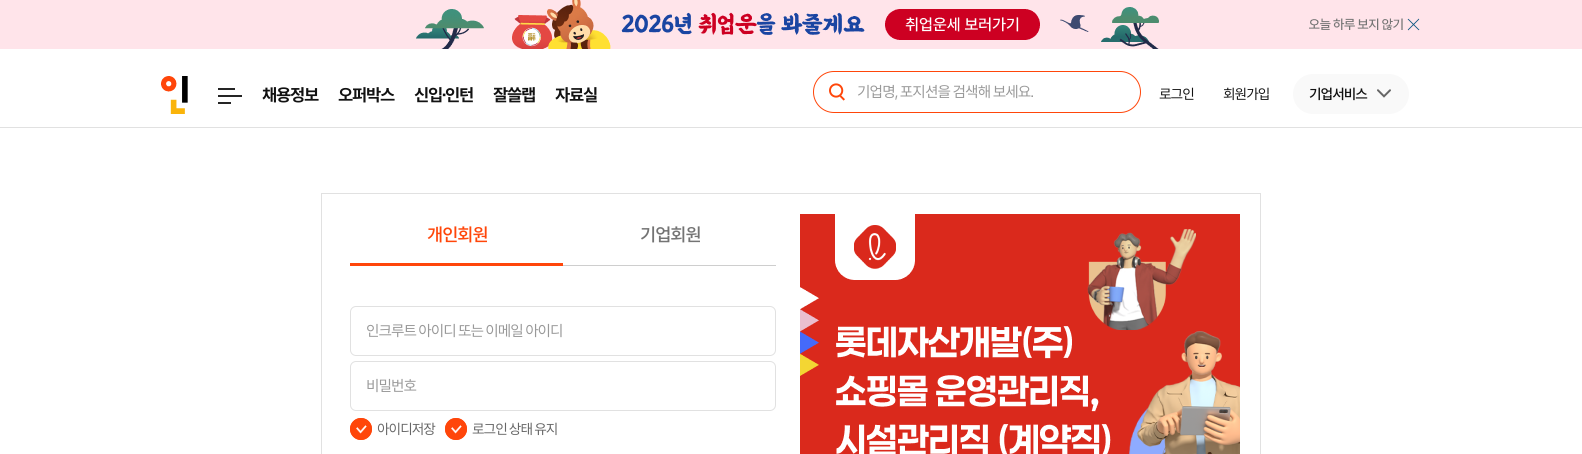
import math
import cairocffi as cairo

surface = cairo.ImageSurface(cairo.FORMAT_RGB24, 1582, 454)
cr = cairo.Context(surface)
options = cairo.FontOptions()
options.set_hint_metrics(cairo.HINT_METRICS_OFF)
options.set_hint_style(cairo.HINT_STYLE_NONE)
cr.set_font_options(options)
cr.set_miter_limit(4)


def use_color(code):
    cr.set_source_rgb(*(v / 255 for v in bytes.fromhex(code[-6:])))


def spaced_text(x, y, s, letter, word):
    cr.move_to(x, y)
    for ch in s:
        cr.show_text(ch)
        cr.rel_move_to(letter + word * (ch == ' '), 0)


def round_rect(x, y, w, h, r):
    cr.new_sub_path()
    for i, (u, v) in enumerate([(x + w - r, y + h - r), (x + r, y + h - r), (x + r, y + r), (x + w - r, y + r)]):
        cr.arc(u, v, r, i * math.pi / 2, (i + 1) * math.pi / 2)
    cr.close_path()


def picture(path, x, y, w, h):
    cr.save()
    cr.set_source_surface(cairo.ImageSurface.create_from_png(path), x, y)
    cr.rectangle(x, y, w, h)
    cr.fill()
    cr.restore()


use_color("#ffffff")
cr.paint()
use_color("#ffe4ea")
cr.rectangle(0, 0, 1582, 49)
cr.fill()
picture("img1.png", 416, 0, 1004, 49)
picture("img2.png", 161, 76, 27, 38)
round_rect(813.5, 71.5, 327, 41, 20.5)
use_color("#ff460a")
cr.set_line_width(1)
cr.stroke()
picture("img3.png", 829, 83, 16, 18)
cr.select_font_face("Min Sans")
cr.set_font_size(15)
use_color("#999999")
spaced_text(857, 97, "기업명, 포지션을 검색해 보세요.", -0.9, 0)
use_color("#e1e1e1")
cr.rectangle(0, 127, 1582, 1)
cr.fill()
use_color("#252525")
cr.rectangle(218, 88, 17, 2)
cr.fill()
cr.rectangle(218, 95, 24, 2)
cr.fill()
cr.rectangle(218, 102, 13, 2)
cr.fill()
cr.select_font_face("Min Sans", cairo.FONT_SLANT_NORMAL, cairo.FONT_WEIGHT_BOLD)
cr.set_font_size(17)
use_color("#121212")
spaced_text(262, 101, "채용정보", -1.25, 0)
spaced_text(338, 101, "오퍼박스", -1.25, 0)
spaced_text(414, 101, "신입·인턴", -1.25, 0)
spaced_text(493, 101, "잘쓸랩", -1.25, 0)
spaced_text(555, 101, "자료실", -1.25, 0)
cr.select_font_face("Min Sans")
cr.set_font_size(14)
spaced_text(1159, 99, "로그인", -1, 0)
spaced_text(1223, 99, "회원가입", -1, 0)
use_color("#f9f9f9")
round_rect(1293, 74, 116, 40, 20)
cr.fill()
picture("img4.png", 1377, 89, 14, 9)
cr.select_font_face("Min Sans Medium")
use_color("#121212")
spaced_text(1309, 99, "기업서비스", -1, 0)
use_color("#e1e1e1")
cr.rectangle(321, 193, 940, 1)
cr.fill()
cr.rectangle(1260, 193, 1, 261)
cr.fill()
picture("img5.png", 800, 214, 440, 240)
cr.rectangle(321, 193, 1, 261)
cr.fill()
cr.set_font_size(18)
use_color("#ff460a")
spaced_text(427, 241, "개인회원", -1, 0)
cr.rectangle(350, 263, 213, 3)
cr.fill()
use_color("#cecece")
cr.rectangle(563, 265, 213, 1)
cr.fill()
use_color("#747474")
spaced_text(640, 241, "기업회원", -1, 0)
round_rect(350.5, 306.5, 425, 49, 5.5)
use_color("#e1e1e1")
cr.stroke()
cr.select_font_face("Min Sans")
cr.set_font_size(15)
use_color("#999999")
spaced_text(366, 336, "인크루트 아이디 또는 이메일 아이디", -1, 0)
round_rect(350.5, 361.5, 425, 49, 5.5)
use_color("#e1e1e1")
cr.stroke()
use_color("#999999")
spaced_text(366, 391, "비밀번호", -1, 0)
picture("img6.png", 350, 418, 22, 22)
cr.set_font_size(14)
use_color("#666666")
spaced_text(377, 434, "아이디저장", -1, 0)
picture("img6.png", 445, 418, 22, 22)
spaced_text(472, 434, "로그인 상태 유지", -1, 0)
surface.write_to_png("result.png")
